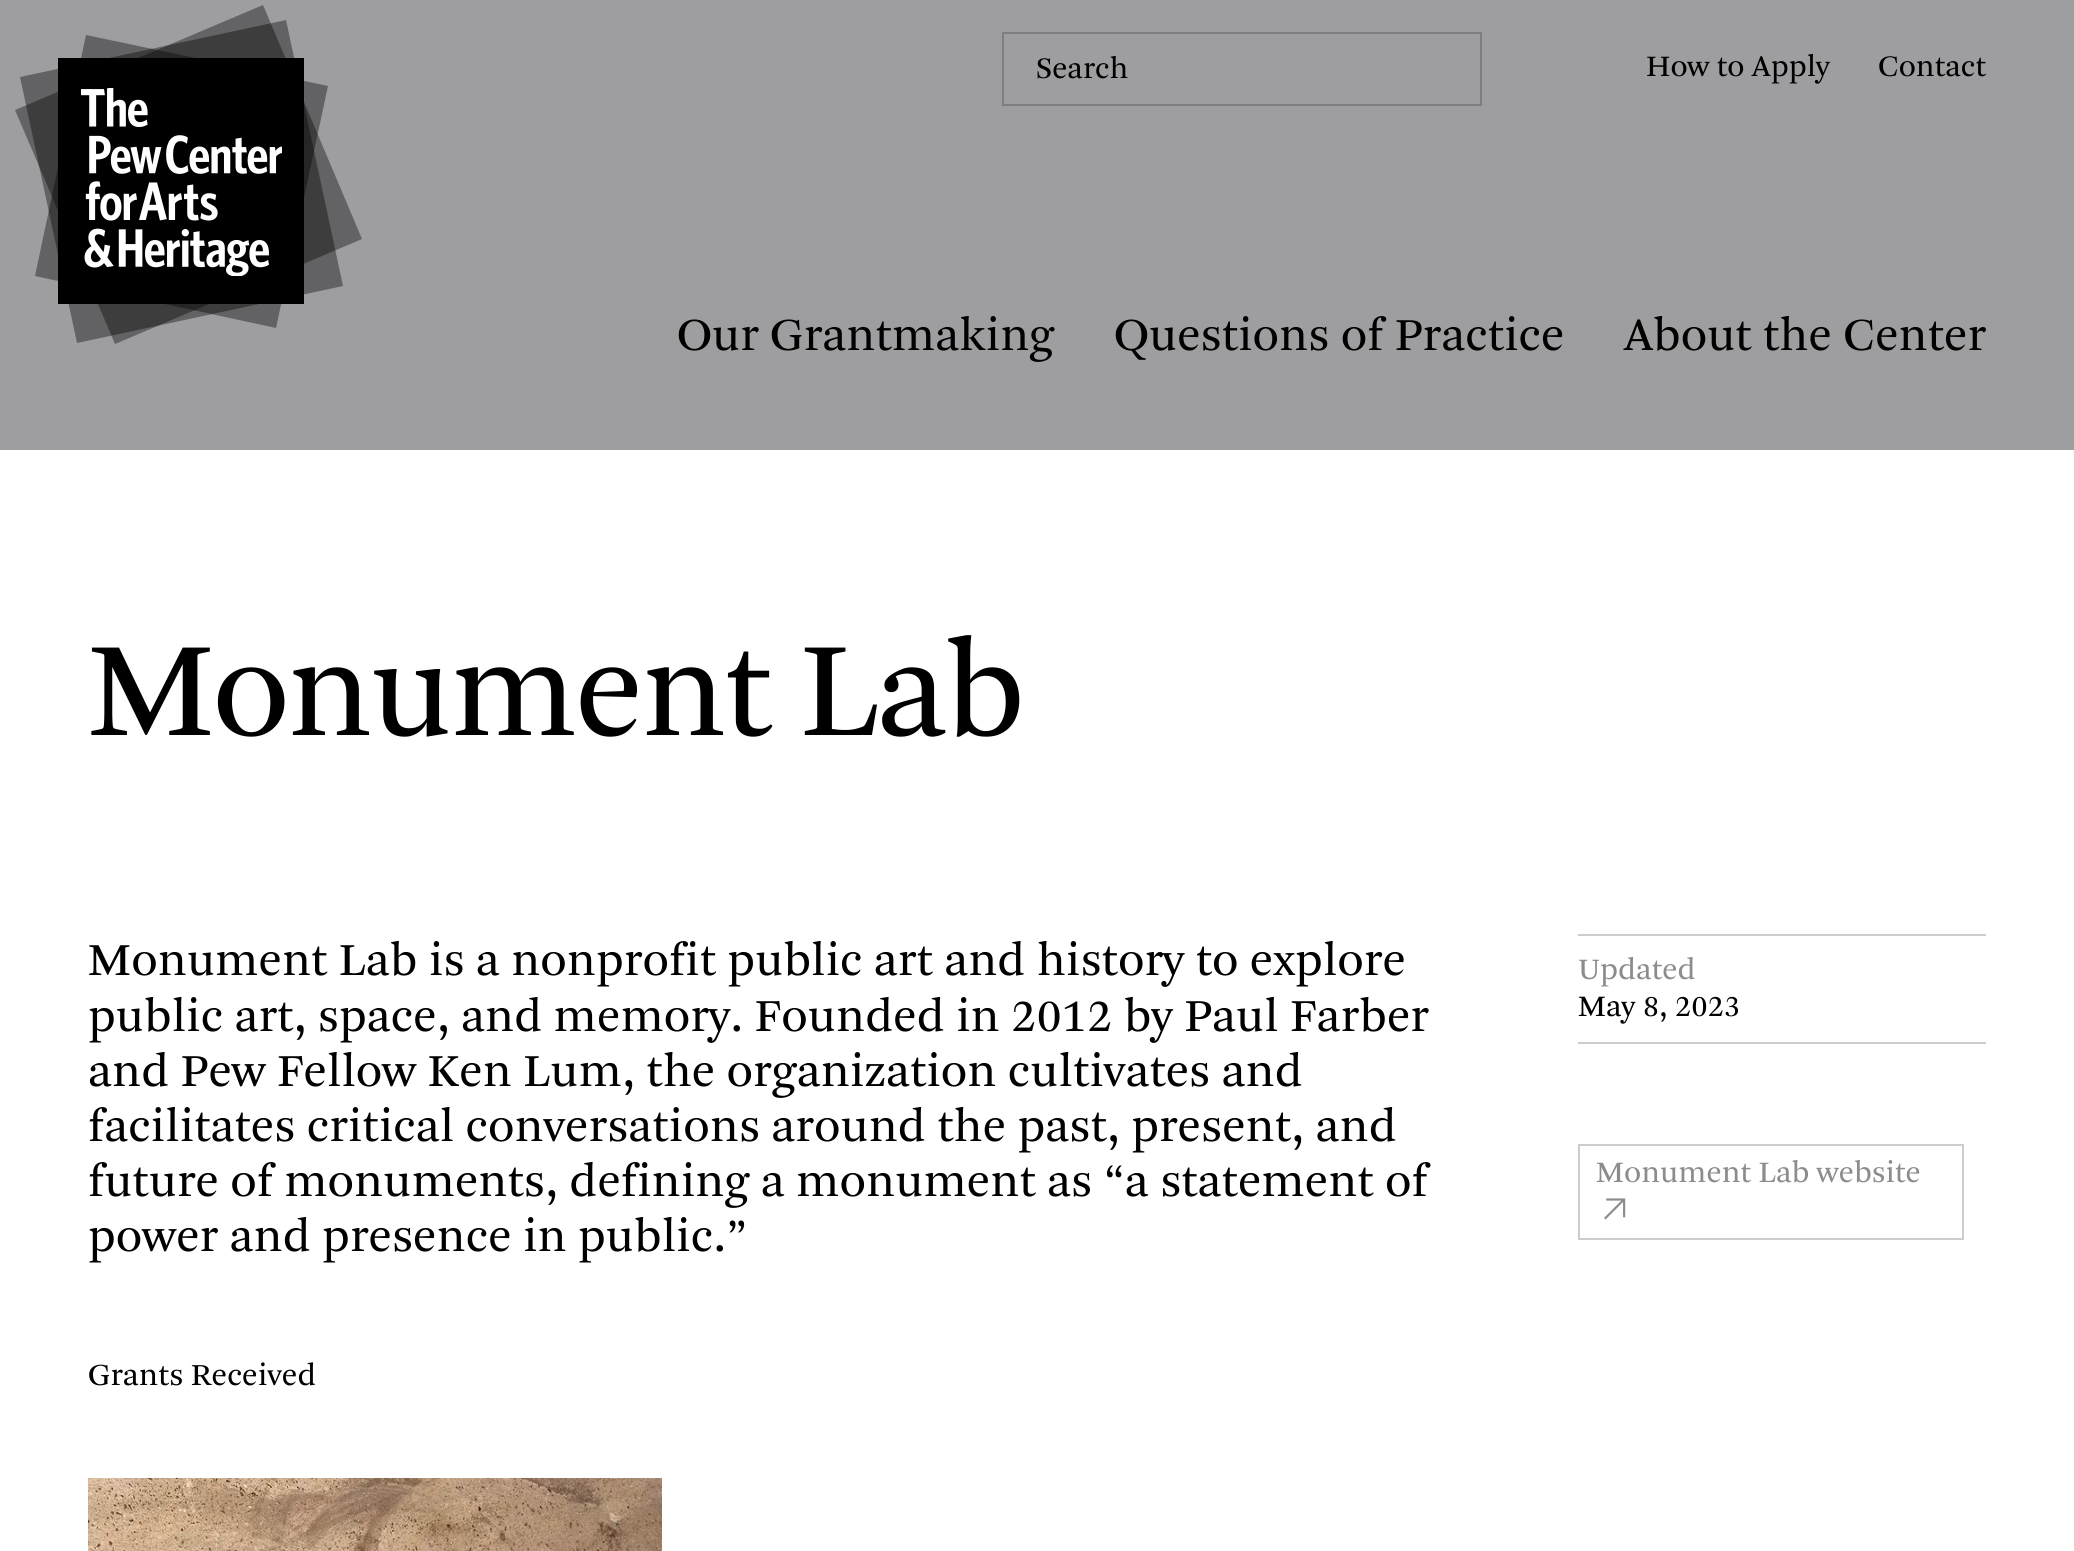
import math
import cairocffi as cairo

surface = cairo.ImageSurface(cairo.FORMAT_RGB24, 2074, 1551)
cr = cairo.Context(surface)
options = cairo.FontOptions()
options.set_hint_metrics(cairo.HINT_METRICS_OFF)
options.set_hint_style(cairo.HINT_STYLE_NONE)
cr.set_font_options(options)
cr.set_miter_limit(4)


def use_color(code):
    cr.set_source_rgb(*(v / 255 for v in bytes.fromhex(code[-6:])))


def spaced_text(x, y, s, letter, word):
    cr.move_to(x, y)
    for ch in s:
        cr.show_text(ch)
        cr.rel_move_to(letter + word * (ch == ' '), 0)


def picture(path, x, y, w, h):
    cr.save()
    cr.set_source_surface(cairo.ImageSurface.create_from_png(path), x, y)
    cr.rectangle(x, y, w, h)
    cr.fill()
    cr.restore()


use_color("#ffffff")
cr.paint()
use_color("#9e9d9f")
cr.rectangle(0, 0, 2074, 450)
cr.fill()
use_color("#636264")
cr.new_path()
cr.move_to(15, 110)
cr.line_to(263, 5)
cr.line_to(362, 239)
cr.line_to(115, 344)
cr.close_path()
cr.fill()
cr.set_source_rgba(0, 0, 0, 0.38)
cr.new_path()
cr.move_to(20, 77)
cr.line_to(286, 20)
cr.line_to(343, 286)
cr.line_to(77, 343)
cr.close_path()
cr.fill()
cr.new_path()
cr.move_to(86, 35)
cr.line_to(328, 86)
cr.line_to(276, 328)
cr.line_to(35, 276)
cr.close_path()
cr.fill()
use_color("#000000")
cr.rectangle(58, 58, 246, 246)
cr.fill()
picture("img1.png", 80, 88, 202, 188)
cr.rectangle(1003, 33, 478, 72)
use_color("#7e7e7f")
cr.stroke()
cr.select_font_face("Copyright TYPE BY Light")
cr.set_font_size(31.1)
use_color("#000000")
cr.move_to(1036, 78)
cr.show_text("Search")
cr.move_to(1646, 76)
cr.show_text("How to Apply")
cr.move_to(1878, 76)
cr.show_text("Contact")
cr.set_font_size(48)
cr.move_to(677, 350)
cr.show_text("Our Grantmaking")
cr.move_to(1114, 350)
cr.show_text("Questions of Practice")
cr.move_to(1624, 350)
cr.show_text("About the Center")
cr.set_font_size(141)
spaced_text(88, 735, "Monument Lab", -2.75, 0)
cr.set_font_size(48)
cr.move_to(88, 975)
cr.show_text("Monument Lab is a nonprofit public art and history to explore")
cr.move_to(88, 1031)
cr.show_text("public art, space, and memory. Founded in 2012 by Paul Farber")
cr.move_to(88, 1086)
cr.show_text("and Pew Fellow Ken Lum, the organization cultivates and")
cr.move_to(88, 1141)
cr.show_text("facilitates critical conversations around the past, present, and")
cr.move_to(88, 1196)
cr.show_text("future of monuments, defining a monument as “a statement of")
cr.move_to(88, 1251)
cr.show_text("power and presence in public.”")
use_color("#cccccc")
cr.rectangle(1578, 934, 408, 2)
cr.fill()
cr.rectangle(1578, 1042, 408, 2)
cr.fill()
cr.set_font_size(31.1)
use_color("#8c8c8c")
cr.move_to(1578, 979)
cr.show_text("Updated")
use_color("#000000")
cr.move_to(1578, 1016)
cr.show_text("May 8, 2023")
picture("img2.png", 1604, 1198, 22, 22)
cr.rectangle(1579, 1145, 384, 94)
use_color("#cccccc")
cr.stroke()
use_color("#8c8c8c")
cr.move_to(1596, 1182)
cr.show_text("Monument Lab website")
cr.set_font_size(32)
use_color("#000000")
cr.move_to(88, 1385)
cr.show_text("Grants Received")
picture("img3.png", 88, 1478, 574, 73)
surface.write_to_png("result.png")
